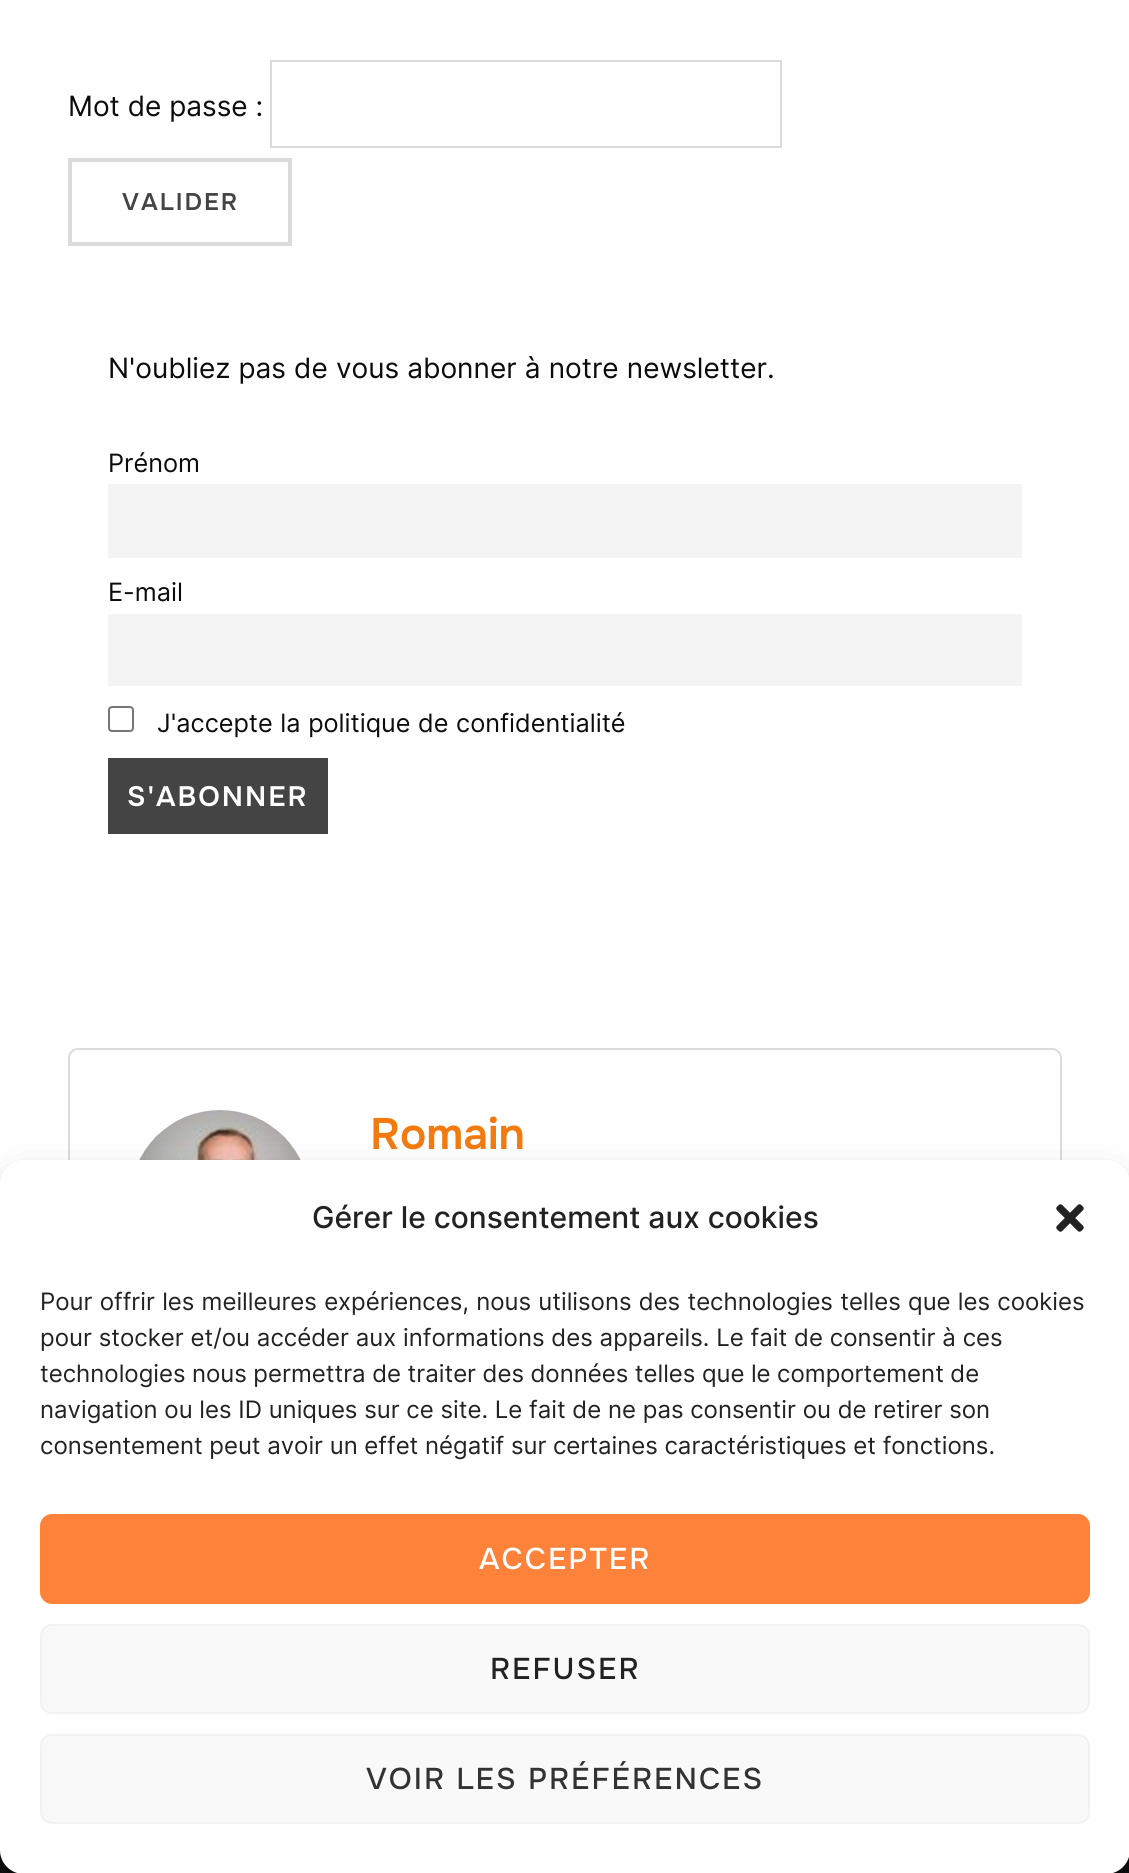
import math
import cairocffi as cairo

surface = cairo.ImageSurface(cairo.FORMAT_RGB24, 1129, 1873)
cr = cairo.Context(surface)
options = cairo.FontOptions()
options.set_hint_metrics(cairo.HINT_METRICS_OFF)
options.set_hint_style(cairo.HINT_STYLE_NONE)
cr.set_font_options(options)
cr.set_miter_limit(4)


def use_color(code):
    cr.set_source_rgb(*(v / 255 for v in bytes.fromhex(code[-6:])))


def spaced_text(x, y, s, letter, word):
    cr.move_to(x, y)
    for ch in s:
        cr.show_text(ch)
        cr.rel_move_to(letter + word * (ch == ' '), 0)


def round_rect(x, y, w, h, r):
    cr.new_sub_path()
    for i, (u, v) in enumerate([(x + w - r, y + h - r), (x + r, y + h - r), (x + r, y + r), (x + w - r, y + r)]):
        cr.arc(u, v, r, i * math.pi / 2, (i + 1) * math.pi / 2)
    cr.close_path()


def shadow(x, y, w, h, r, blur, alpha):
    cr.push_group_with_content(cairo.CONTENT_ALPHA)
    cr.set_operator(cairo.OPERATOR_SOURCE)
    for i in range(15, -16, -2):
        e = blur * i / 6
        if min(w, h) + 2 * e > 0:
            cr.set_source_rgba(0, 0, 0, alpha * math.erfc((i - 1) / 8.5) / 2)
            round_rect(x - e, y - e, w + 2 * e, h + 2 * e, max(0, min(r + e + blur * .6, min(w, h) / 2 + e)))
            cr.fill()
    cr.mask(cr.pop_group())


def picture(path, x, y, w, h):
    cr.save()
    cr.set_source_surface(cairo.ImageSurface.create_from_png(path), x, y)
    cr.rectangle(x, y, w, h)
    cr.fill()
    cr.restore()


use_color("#ffffff")
cr.paint()
cr.select_font_face("Inter")
cr.set_font_size(28)
use_color("#0c0c0c")
cr.move_to(68, 116)
cr.show_text("Mot de passe :")
cr.rectangle(271, 61, 510, 86)
use_color("#dbdbdb")
cr.stroke()
cr.rectangle(70, 160, 220, 84)
cr.set_line_width(4)
cr.stroke()
cr.select_font_face("Onest SemiBold")
cr.set_font_size(24)
use_color("#444444")
spaced_text(122, 210, "VALIDER", 2, 0)
cr.select_font_face("Inter")
cr.set_font_size(28)
use_color("#0c0c0c")
spaced_text(108, 378, "N'oubliez pas de vous abonner à notre newsletter.", 0, 0.25)
cr.set_font_size(25.25)
cr.move_to(108, 472)
cr.show_text("Prénom")
use_color("#f4f4f4")
cr.rectangle(108, 484, 914, 74)
cr.fill()
use_color("#0c0c0c")
cr.move_to(108, 601)
cr.show_text("E-mail")
use_color("#f4f4f4")
cr.rectangle(108, 614, 914, 72)
cr.fill()
round_rect(109, 707, 24, 24, 3)
use_color("#767676")
cr.set_line_width(2)
cr.stroke()
use_color("#0c0c0c")
spaced_text(157, 732, "J'accepte la politique de confidentialité", 0, 0.5)
use_color("#444444")
cr.rectangle(108, 758, 220, 76)
cr.fill()
cr.select_font_face("Onest SemiBold")
cr.set_font_size(28)
use_color("#ffffff")
spaced_text(127, 806, "S'ABONNER", 2, 0)
round_rect(69, 1049, 992, 302, 9)
use_color("#dbdbdb")
cr.stroke()
picture("img1.png", 139, 1110, 162, 50)
cr.set_font_size(44)
use_color("#f47a0e")
cr.move_to(370, 1149)
cr.show_text("Romain")
use_color("#101010")
cr.rectangle(0, 1850, 1129, 23)
cr.fill()
use_color("#000000")
shadow(0, 1172, 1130, 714, 24, 6, 0.23)
shadow(0, 1180, 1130, 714, 24, 20, 0.19)
use_color("#ffffff")
round_rect(0, 1160, 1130, 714, 24)
cr.fill()
cr.select_font_face("Inter Medium")
cr.set_font_size(30)
use_color("#222222")
cr.move_to(312, 1228)
cr.show_text("Gérer le consentement aux cookies")
picture("img2.png", 1056, 1204, 28, 28)
cr.select_font_face("Inter")
cr.set_font_size(24)
spaced_text(40, 1310, "Pour offrir les meilleures expériences, nous utilisons des technologies telles que les cookies", 0, 0.5)
spaced_text(40, 1346, "pour stocker et/ou accéder aux informations des appareils. Le fait de consentir à ces", 0, 0.1)
spaced_text(40, 1382, "technologies nous permettra de traiter des données telles que le comportement de", 0, -0.25)
cr.move_to(40, 1418)
cr.show_text("navigation ou les ID uniques sur ce site. Le fait de ne pas consentir ou de retirer son")
spaced_text(40, 1454, "consentement peut avoir un effet négatif sur certaines caractéristiques et fonctions.", 0, -0.1)
use_color("#ff823a")
round_rect(41, 1515, 1048, 88, 11)
cr.fill_preserve()
cr.stroke()
cr.select_font_face("Onest Medium")
cr.set_font_size(30)
use_color("#ffffff")
spaced_text(479, 1569, "ACCEPTER", 2, 0)
use_color("#f9f9f9")
round_rect(41, 1625, 1048, 88, 11)
cr.fill_preserve()
use_color("#f2f2f2")
cr.stroke()
use_color("#222222")
spaced_text(490, 1679, "REFUSER", 2, 0)
use_color("#f9f9f9")
round_rect(41, 1735, 1048, 88, 11)
cr.fill_preserve()
use_color("#f2f2f2")
cr.stroke()
use_color("#333333")
spaced_text(366, 1789, "VOIR LES PRÉFÉRENCES", 2, 0)
surface.write_to_png("result.png")
